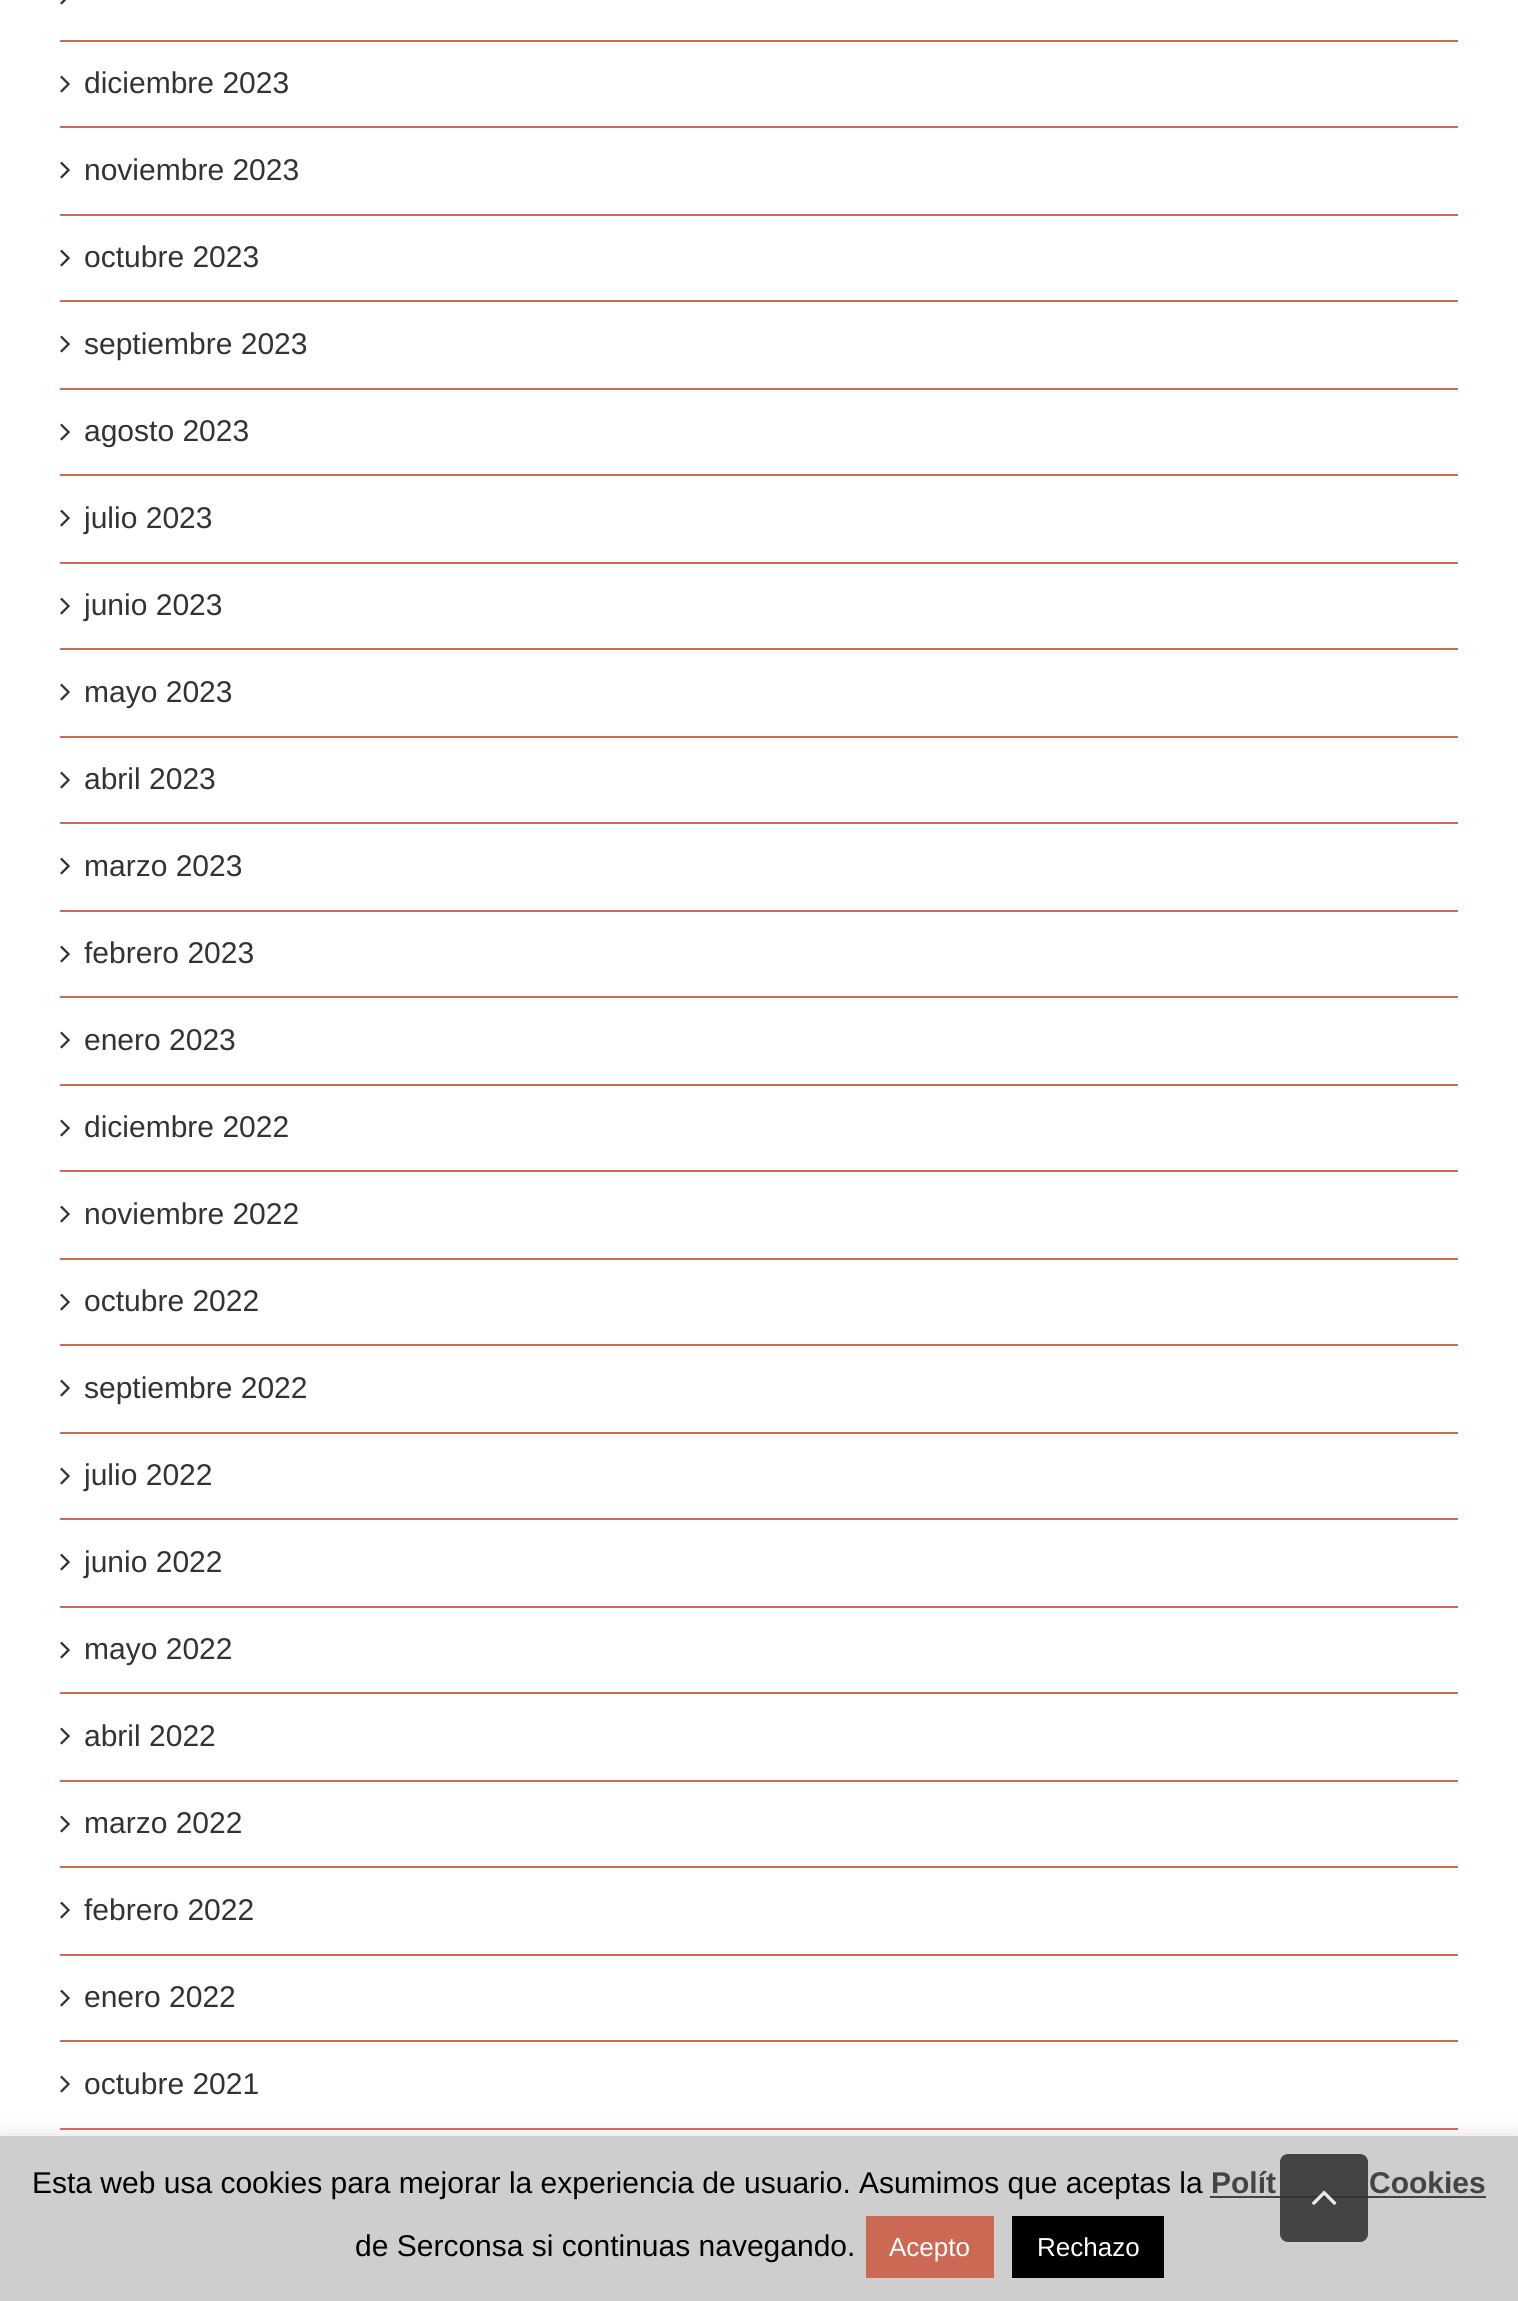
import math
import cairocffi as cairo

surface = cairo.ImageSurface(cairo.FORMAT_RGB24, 1518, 2301)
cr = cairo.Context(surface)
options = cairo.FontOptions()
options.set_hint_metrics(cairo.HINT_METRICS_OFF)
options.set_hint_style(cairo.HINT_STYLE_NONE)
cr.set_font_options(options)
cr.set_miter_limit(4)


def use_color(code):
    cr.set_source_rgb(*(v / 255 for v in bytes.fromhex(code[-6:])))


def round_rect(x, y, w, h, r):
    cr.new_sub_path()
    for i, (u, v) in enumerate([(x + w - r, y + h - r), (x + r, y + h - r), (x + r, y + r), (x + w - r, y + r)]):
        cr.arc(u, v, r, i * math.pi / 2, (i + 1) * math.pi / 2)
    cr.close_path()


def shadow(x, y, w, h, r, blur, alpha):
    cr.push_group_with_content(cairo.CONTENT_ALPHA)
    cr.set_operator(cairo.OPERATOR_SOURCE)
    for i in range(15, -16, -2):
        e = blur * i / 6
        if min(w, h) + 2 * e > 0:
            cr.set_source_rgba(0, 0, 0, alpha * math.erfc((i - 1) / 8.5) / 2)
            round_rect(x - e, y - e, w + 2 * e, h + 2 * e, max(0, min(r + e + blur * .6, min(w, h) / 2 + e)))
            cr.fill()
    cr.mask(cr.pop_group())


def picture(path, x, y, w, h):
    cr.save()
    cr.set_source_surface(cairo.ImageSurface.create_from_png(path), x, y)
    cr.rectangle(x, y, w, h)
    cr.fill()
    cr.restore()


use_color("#ffffff")
cr.paint()
use_color("#cc6955")
cr.rectangle(60, 40, 1398, 2)
cr.fill()
picture("img1.png", 60, 0, 7, 5)
cr.rectangle(60, 126, 1398, 2)
cr.fill()
picture("img2.png", 60, 75, 10, 18)
cr.select_font_face("Liberation Sans")
cr.set_font_size(30)
use_color("#333333")
cr.move_to(84, 93)
cr.show_text("diciembre 2023")
use_color("#cc6955")
cr.rectangle(60, 214, 1398, 2)
cr.fill()
picture("img2.png", 60, 161, 10, 18)
use_color("#333333")
cr.move_to(84, 180)
cr.show_text("noviembre 2023")
use_color("#cc6955")
cr.rectangle(60, 300, 1398, 2)
cr.fill()
picture("img2.png", 60, 249, 10, 18)
use_color("#333333")
cr.move_to(84, 267)
cr.show_text("octubre 2023")
use_color("#cc6955")
cr.rectangle(60, 388, 1398, 2)
cr.fill()
picture("img2.png", 60, 335, 10, 18)
use_color("#333333")
cr.move_to(84, 354)
cr.show_text("septiembre 2023")
use_color("#cc6955")
cr.rectangle(60, 474, 1398, 2)
cr.fill()
picture("img2.png", 60, 423, 10, 18)
use_color("#333333")
cr.move_to(84, 441)
cr.show_text("agosto 2023")
use_color("#cc6955")
cr.rectangle(60, 562, 1398, 2)
cr.fill()
picture("img2.png", 60, 509, 10, 18)
use_color("#333333")
cr.move_to(84, 528)
cr.show_text("julio 2023")
use_color("#cc6955")
cr.rectangle(60, 648, 1398, 2)
cr.fill()
picture("img2.png", 60, 597, 10, 18)
use_color("#333333")
cr.move_to(84, 615)
cr.show_text("junio 2023")
use_color("#cc6955")
cr.rectangle(60, 736, 1398, 2)
cr.fill()
picture("img2.png", 60, 683, 10, 18)
use_color("#333333")
cr.move_to(84, 702)
cr.show_text("mayo 2023")
use_color("#cc6955")
cr.rectangle(60, 822, 1398, 2)
cr.fill()
picture("img2.png", 60, 771, 10, 18)
use_color("#333333")
cr.move_to(84, 789)
cr.show_text("abril 2023")
use_color("#cc6955")
cr.rectangle(60, 910, 1398, 2)
cr.fill()
picture("img2.png", 60, 857, 10, 18)
use_color("#333333")
cr.move_to(84, 876)
cr.show_text("marzo 2023")
use_color("#cc6955")
cr.rectangle(60, 996, 1398, 2)
cr.fill()
picture("img2.png", 60, 945, 10, 18)
use_color("#333333")
cr.move_to(84, 963)
cr.show_text("febrero 2023")
use_color("#cc6955")
cr.rectangle(60, 1084, 1398, 2)
cr.fill()
picture("img2.png", 60, 1031, 10, 18)
use_color("#333333")
cr.move_to(84, 1050)
cr.show_text("enero 2023")
use_color("#cc6955")
cr.rectangle(60, 1170, 1398, 2)
cr.fill()
picture("img2.png", 60, 1119, 10, 18)
use_color("#333333")
cr.move_to(84, 1137)
cr.show_text("diciembre 2022")
use_color("#cc6955")
cr.rectangle(60, 1258, 1398, 2)
cr.fill()
picture("img2.png", 60, 1205, 10, 18)
use_color("#333333")
cr.move_to(84, 1224)
cr.show_text("noviembre 2022")
use_color("#cc6955")
cr.rectangle(60, 1344, 1398, 2)
cr.fill()
picture("img2.png", 60, 1293, 10, 18)
use_color("#333333")
cr.move_to(84, 1311)
cr.show_text("octubre 2022")
use_color("#cc6955")
cr.rectangle(60, 1432, 1398, 2)
cr.fill()
picture("img2.png", 60, 1379, 10, 18)
use_color("#333333")
cr.move_to(84, 1398)
cr.show_text("septiembre 2022")
use_color("#cc6955")
cr.rectangle(60, 1518, 1398, 2)
cr.fill()
picture("img2.png", 60, 1467, 10, 18)
use_color("#333333")
cr.move_to(84, 1485)
cr.show_text("julio 2022")
use_color("#cc6955")
cr.rectangle(60, 1606, 1398, 2)
cr.fill()
picture("img2.png", 60, 1553, 10, 18)
use_color("#333333")
cr.move_to(84, 1572)
cr.show_text("junio 2022")
use_color("#cc6955")
cr.rectangle(60, 1692, 1398, 2)
cr.fill()
picture("img2.png", 60, 1641, 10, 18)
use_color("#333333")
cr.move_to(84, 1659)
cr.show_text("mayo 2022")
use_color("#cc6955")
cr.rectangle(60, 1780, 1398, 2)
cr.fill()
picture("img2.png", 60, 1727, 10, 18)
use_color("#333333")
cr.move_to(84, 1746)
cr.show_text("abril 2022")
use_color("#cc6955")
cr.rectangle(60, 1866, 1398, 2)
cr.fill()
picture("img2.png", 60, 1815, 10, 18)
use_color("#333333")
cr.move_to(84, 1833)
cr.show_text("marzo 2022")
use_color("#cc6955")
cr.rectangle(60, 1954, 1398, 2)
cr.fill()
picture("img2.png", 60, 1901, 10, 18)
use_color("#333333")
cr.move_to(84, 1920)
cr.show_text("febrero 2022")
use_color("#cc6955")
cr.rectangle(60, 2040, 1398, 2)
cr.fill()
picture("img2.png", 60, 1989, 10, 18)
use_color("#333333")
cr.move_to(84, 2007)
cr.show_text("enero 2022")
use_color("#cc6955")
cr.rectangle(60, 2128, 1398, 2)
cr.fill()
picture("img2.png", 60, 2075, 10, 18)
use_color("#333333")
cr.move_to(84, 2094)
cr.show_text("octubre 2021")
use_color("#acabab")
shadow(0, 2134, 1518, 166, 0, 10, 0.3)
use_color("#cecece")
cr.rectangle(0, 2136, 1518, 165)
cr.fill()
use_color("#444444")
cr.rectangle(1210, 2196, 276, 2)
cr.fill()
cr.set_source_rgba(0.2, 0.2, 0.2, 0.89)
round_rect(1280, 2154, 88, 88, 8)
cr.fill()
picture("img3.png", 1312, 2190, 25, 15)
use_color("#000000")
cr.move_to(32, 2193)
cr.show_text("Esta web usa cookies para mejorar la experiencia de usuario. Asumimos que aceptas la")
cr.select_font_face("Liberation Sans", cairo.FONT_SLANT_NORMAL, cairo.FONT_WEIGHT_BOLD)
use_color("#444444")
cr.move_to(1211, 2193)
cr.show_text("Polít")
cr.move_to(1369, 2193)
cr.show_text("Cookies")
cr.select_font_face("Liberation Sans")
use_color("#000000")
cr.move_to(355, 2256)
cr.show_text("de Serconsa si continuas navegando.")
use_color("#cc6955")
cr.rectangle(866, 2216, 128, 62)
cr.fill()
cr.set_font_size(26)
use_color("#ffffff")
cr.move_to(889, 2256)
cr.show_text("Acepto")
use_color("#000000")
cr.rectangle(1012, 2216, 152, 62)
cr.fill()
use_color("#ffffff")
cr.move_to(1037, 2256)
cr.show_text("Rechazo")
surface.write_to_png("result.png")
